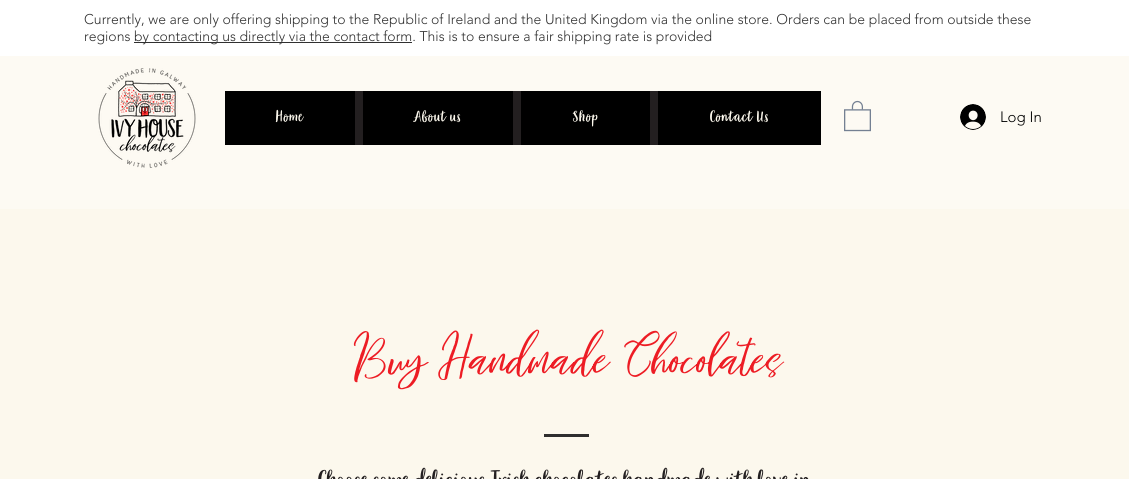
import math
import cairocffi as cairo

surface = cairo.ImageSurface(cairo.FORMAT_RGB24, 1129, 479)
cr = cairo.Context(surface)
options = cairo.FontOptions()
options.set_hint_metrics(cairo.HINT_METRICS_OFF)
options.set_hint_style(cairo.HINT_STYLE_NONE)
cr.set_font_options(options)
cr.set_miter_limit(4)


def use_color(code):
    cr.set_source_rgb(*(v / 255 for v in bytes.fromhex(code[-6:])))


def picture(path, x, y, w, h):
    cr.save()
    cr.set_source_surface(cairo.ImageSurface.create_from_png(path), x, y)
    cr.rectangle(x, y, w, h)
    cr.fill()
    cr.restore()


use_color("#fcf8ed")
cr.paint()
use_color("#ffffff")
cr.rectangle(0, 0, 1129, 56)
cr.fill()
cr.select_font_face("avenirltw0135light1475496 Light")
cr.set_font_size(14)
use_color("#303030")
cr.move_to(84, 24)
cr.show_text("Currently, we are only offering shipping to the Republic of Ireland and the United Kingdom via the online store. Orders can be placed from outside these")
cr.move_to(84, 41)
cr.show_text("regions")
cr.rectangle(134, 42, 278, 1)
cr.fill()
cr.move_to(134, 41)
cr.show_text("by contacting us directly via the contact form. This is to ensure a fair shipping rate is provided")
use_color("#fdfaf3")
cr.rectangle(0, 56, 1129, 153)
cr.fill()
picture("img1.png", 98, 68, 98, 100)
use_color("#231f20")
cr.rectangle(355, 91, 303, 54)
cr.fill()
use_color("#000000")
cr.rectangle(225, 91, 130, 54)
cr.fill()
picture("img2.png", 275, 109, 29, 14)
cr.rectangle(363, 91, 150, 54)
cr.fill()
picture("img3.png", 413, 110, 48, 13)
cr.rectangle(521, 91, 129, 54)
cr.fill()
picture("img4.png", 572, 110, 26, 17)
cr.rectangle(658, 91, 163, 54)
cr.fill()
picture("img5.png", 710, 110, 58, 13)
picture("img6.png", 844, 100, 27, 32)
picture("img7.png", 960, 104, 26, 26)
cr.set_font_size(15)
cr.move_to(1000, 122)
cr.show_text("Log In")
cr.select_font_face("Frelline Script")
cr.set_font_size(45)
use_color("#ed1c24")
cr.move_to(350, 373)
cr.show_text("Buy Handmade Chocolates")
use_color("#2f2e2e")
cr.rectangle(544, 434, 45, 3)
cr.fill()
picture("img8.png", 318, 467, 491, 12)
surface.write_to_png("result.png")
